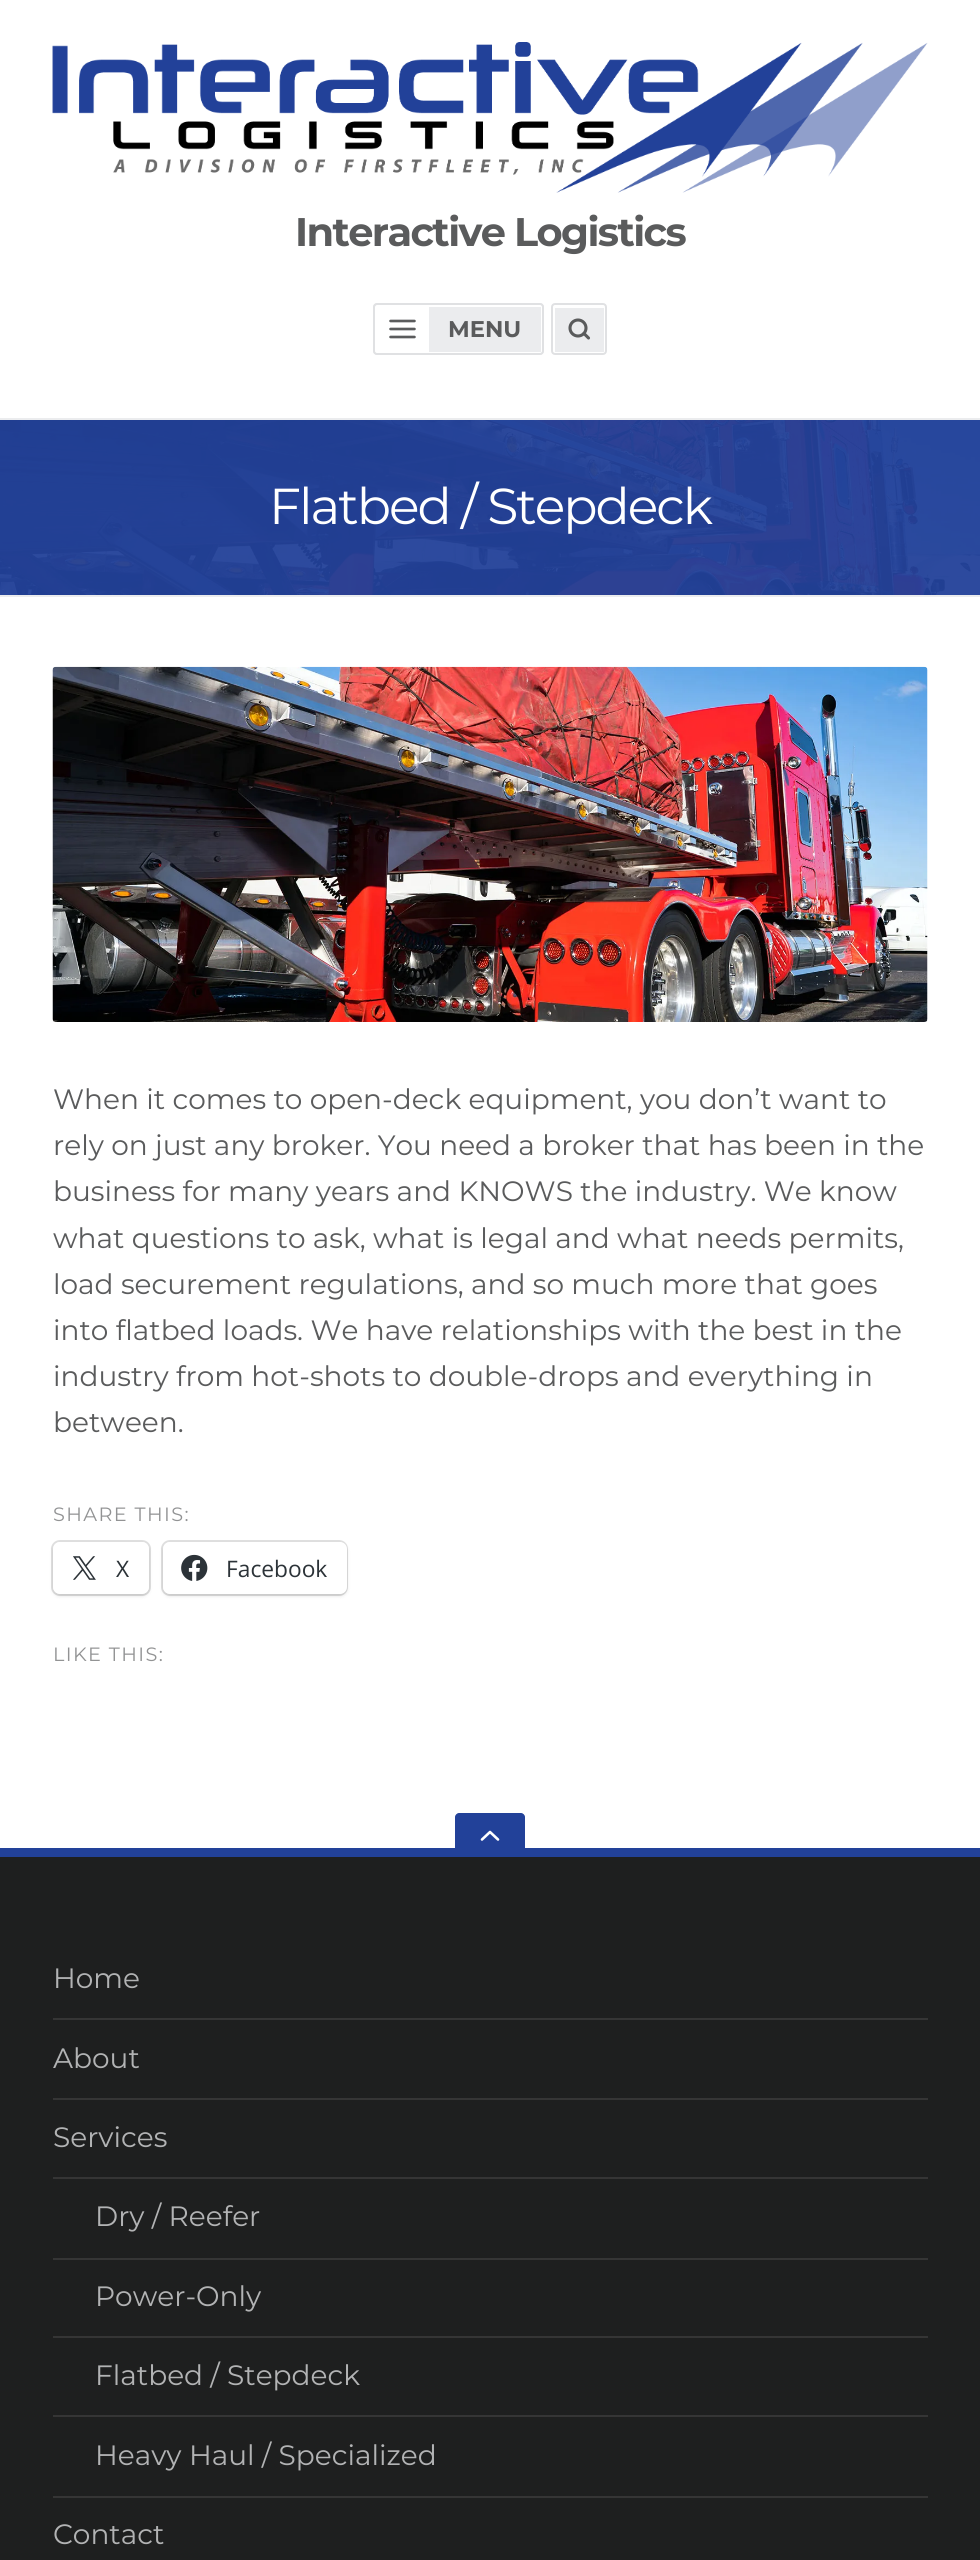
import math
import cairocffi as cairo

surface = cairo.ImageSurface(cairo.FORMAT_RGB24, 980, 2560)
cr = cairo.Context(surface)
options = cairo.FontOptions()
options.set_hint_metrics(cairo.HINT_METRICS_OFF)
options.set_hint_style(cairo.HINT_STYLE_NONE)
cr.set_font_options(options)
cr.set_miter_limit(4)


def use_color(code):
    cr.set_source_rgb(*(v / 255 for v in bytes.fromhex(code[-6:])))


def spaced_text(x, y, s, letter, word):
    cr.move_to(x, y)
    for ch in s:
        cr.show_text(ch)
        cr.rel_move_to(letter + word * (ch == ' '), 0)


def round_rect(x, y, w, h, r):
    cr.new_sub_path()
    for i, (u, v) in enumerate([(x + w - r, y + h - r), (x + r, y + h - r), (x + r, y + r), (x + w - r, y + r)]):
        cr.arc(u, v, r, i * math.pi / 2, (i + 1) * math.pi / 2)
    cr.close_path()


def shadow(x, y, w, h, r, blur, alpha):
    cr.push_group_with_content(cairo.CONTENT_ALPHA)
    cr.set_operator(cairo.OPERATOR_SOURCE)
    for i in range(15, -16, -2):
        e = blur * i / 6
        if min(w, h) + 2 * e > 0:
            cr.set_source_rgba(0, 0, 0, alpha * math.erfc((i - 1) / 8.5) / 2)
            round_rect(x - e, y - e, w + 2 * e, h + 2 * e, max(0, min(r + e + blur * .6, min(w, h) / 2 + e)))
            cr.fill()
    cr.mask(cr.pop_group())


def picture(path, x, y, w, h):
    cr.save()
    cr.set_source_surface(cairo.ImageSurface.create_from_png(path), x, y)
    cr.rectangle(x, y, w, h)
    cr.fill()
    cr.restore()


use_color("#ffffff")
cr.paint()
use_color("#ebecee")
cr.rectangle(0, 418, 980, 2)
cr.fill()
picture("img1.png", 52, 42, 876, 151)
cr.select_font_face("Montserrat", cairo.FONT_SLANT_NORMAL, cairo.FONT_WEIGHT_BOLD)
cr.set_font_size(39.9)
use_color("#5a5b5c")
spaced_text(295, 246, "Interactive Logistics", -1.6, 0)
use_color("#ebecee")
round_rect(373, 303, 171, 52, 4)
cr.fill()
round_rect(376, 306, 166, 47, 1)
use_color("#ffffff")
cr.stroke()
round_rect(374, 304, 169, 50, 3)
use_color("#e0e1e3")
cr.stroke()
use_color("#ffffff")
cr.rectangle(377, 307, 52, 45)
cr.fill()
cr.new_path()
cr.move_to(390.5, 329)
cr.line_to(414.5, 329)
cr.move_to(390.5, 321)
cr.line_to(414.5, 321)
cr.move_to(390.5, 337)
cr.line_to(414.5, 337)
use_color("#5a5b5c")
cr.set_line_width(2.6)
cr.set_line_cap(cairo.LINE_CAP_ROUND)
cr.set_line_join(cairo.LINE_JOIN_ROUND)
cr.stroke()
cr.set_font_size(22.75)
cr.move_to(448, 337)
cr.show_text("MENU")
round_rect(552, 304, 54, 50, 3)
use_color("#e0e1e3")
cr.set_line_width(2)
cr.set_line_cap(cairo.LINE_CAP_BUTT)
cr.set_line_join(cairo.LINE_JOIN_MITER)
cr.stroke()
use_color("#ebecee")
cr.rectangle(555, 308, 49, 44)
cr.fill()
cr.arc(578, 328, 8, 0, 2 * math.pi)
use_color("#5a5b5c")
cr.set_line_width(3.1)
cr.stroke()
cr.new_path()
cr.move_to(588.5, 338)
cr.line_to(584, 333.5)
cr.set_line_cap(cairo.LINE_CAP_ROUND)
cr.set_line_join(cairo.LINE_JOIN_ROUND)
cr.stroke()
use_color("#ebecee")
cr.rectangle(0, 595, 980, 2)
cr.fill()
picture("img2.png", 0, 420, 980, 175)
cr.select_font_face("Montserrat")
cr.set_font_size(50.5)
use_color("#ffffff")
spaced_text(269, 524, "Flatbed / Stepdeck", -2, 0)
picture("img3.png", 52, 666, 876, 356)
cr.set_font_size(28)
use_color("#5a5b5c")
cr.move_to(53, 1109)
cr.show_text("When it comes to open-deck equipment, you don’t want to")
cr.move_to(53, 1155)
cr.show_text("rely on just any broker. You need a broker that has been in the")
cr.move_to(53, 1201)
cr.show_text("business for many years and KNOWS the industry. We know")
cr.move_to(53, 1248)
cr.show_text("what questions to ask, what is legal and what needs permits,")
cr.move_to(53, 1294)
cr.show_text("load securement regulations, and so much more that goes")
cr.move_to(53, 1340)
cr.show_text("into flatbed loads. We have relationships with the best in the")
cr.move_to(53, 1386)
cr.show_text("industry from hot-shots to double-drops and everything in")
cr.move_to(53, 1432)
cr.show_text("between.")
cr.set_font_size(19.25)
use_color("#929394")
spaced_text(53, 1521, "SHARE THIS:", 1.4, 0)
round_rect(52, 1541, 98, 54, 8)
use_color("#e0e0e0")
cr.set_line_width(2)
cr.set_line_cap(cairo.LINE_CAP_BUTT)
cr.set_line_join(cairo.LINE_JOIN_MITER)
cr.stroke()
use_color("#000000")
shadow(53, 1544, 96, 52, 7, 2, 0.12)
use_color("#ffffff")
round_rect(53, 1542, 96, 52, 7)
cr.fill()
picture("img4.png", 73, 1556, 23, 24)
cr.select_font_face("Open Sans")
cr.set_font_size(22.75)
use_color("#2c3338")
cr.move_to(116, 1577)
cr.show_text("X")
round_rect(162, 1541, 185, 54, 8)
use_color("#e0e0e0")
cr.stroke()
use_color("#000000")
shadow(163, 1544, 184, 52, 7, 2, 0.12)
use_color("#ffffff")
round_rect(163, 1542, 184, 52, 7)
cr.fill()
picture("img5.png", 181, 1554, 27, 27)
use_color("#2c3338")
cr.move_to(226, 1577)
cr.show_text("Facebook")
cr.select_font_face("Montserrat")
cr.set_font_size(19.25)
use_color("#929394")
spaced_text(53, 1661, "LIKE THIS:", 1.4, 0)
use_color("#1e1f1f")
cr.rectangle(0, 1857, 980, 703)
cr.fill()
use_color("#224199")
cr.rectangle(0, 1848, 980, 9)
cr.fill()
cr.new_path()
cr.move_to(459, 1813)
cr.line_to(521, 1813)
cr.curve_to(523, 1813, 525, 1815, 525, 1817)
cr.line_to(525, 1857)
cr.line_to(455, 1857)
cr.line_to(455, 1817)
cr.curve_to(455, 1815, 457, 1813, 459, 1813)
cr.close_path()
cr.fill()
cr.new_path()
cr.move_to(498, 1839.5)
cr.line_to(490, 1832)
cr.line_to(482, 1839.5)
use_color("#ffffff")
cr.set_line_width(2.6)
cr.set_line_cap(cairo.LINE_CAP_ROUND)
cr.set_line_join(cairo.LINE_JOIN_ROUND)
cr.stroke()
cr.set_font_size(28)
use_color("#b2b3b4")
cr.move_to(53, 1988)
cr.show_text("Home")
use_color("#353535")
cr.rectangle(53, 2018, 875, 2)
cr.fill()
use_color("#b2b3b4")
cr.move_to(53, 2068)
cr.show_text("About")
use_color("#353535")
cr.rectangle(53, 2098, 875, 2)
cr.fill()
use_color("#b2b3b4")
cr.move_to(53, 2147)
cr.show_text("Services")
use_color("#353535")
cr.rectangle(53, 2177, 875, 2)
cr.fill()
use_color("#b2b3b4")
cr.move_to(95, 2226)
cr.show_text("Dry / Reefer")
use_color("#353535")
cr.rectangle(53, 2258, 875, 2)
cr.fill()
use_color("#b2b3b4")
cr.move_to(95, 2306)
cr.show_text("Power-Only")
use_color("#353535")
cr.rectangle(53, 2336, 875, 2)
cr.fill()
use_color("#b2b3b4")
cr.move_to(95, 2385)
cr.show_text("Flatbed / Stepdeck")
use_color("#353535")
cr.rectangle(53, 2415, 875, 2)
cr.fill()
use_color("#b2b3b4")
cr.move_to(95, 2465)
cr.show_text("Heavy Haul / Specialized")
use_color("#353535")
cr.rectangle(53, 2496, 875, 2)
cr.fill()
use_color("#b2b3b4")
cr.move_to(53, 2544)
cr.show_text("Contact")
surface.write_to_png("result.png")
